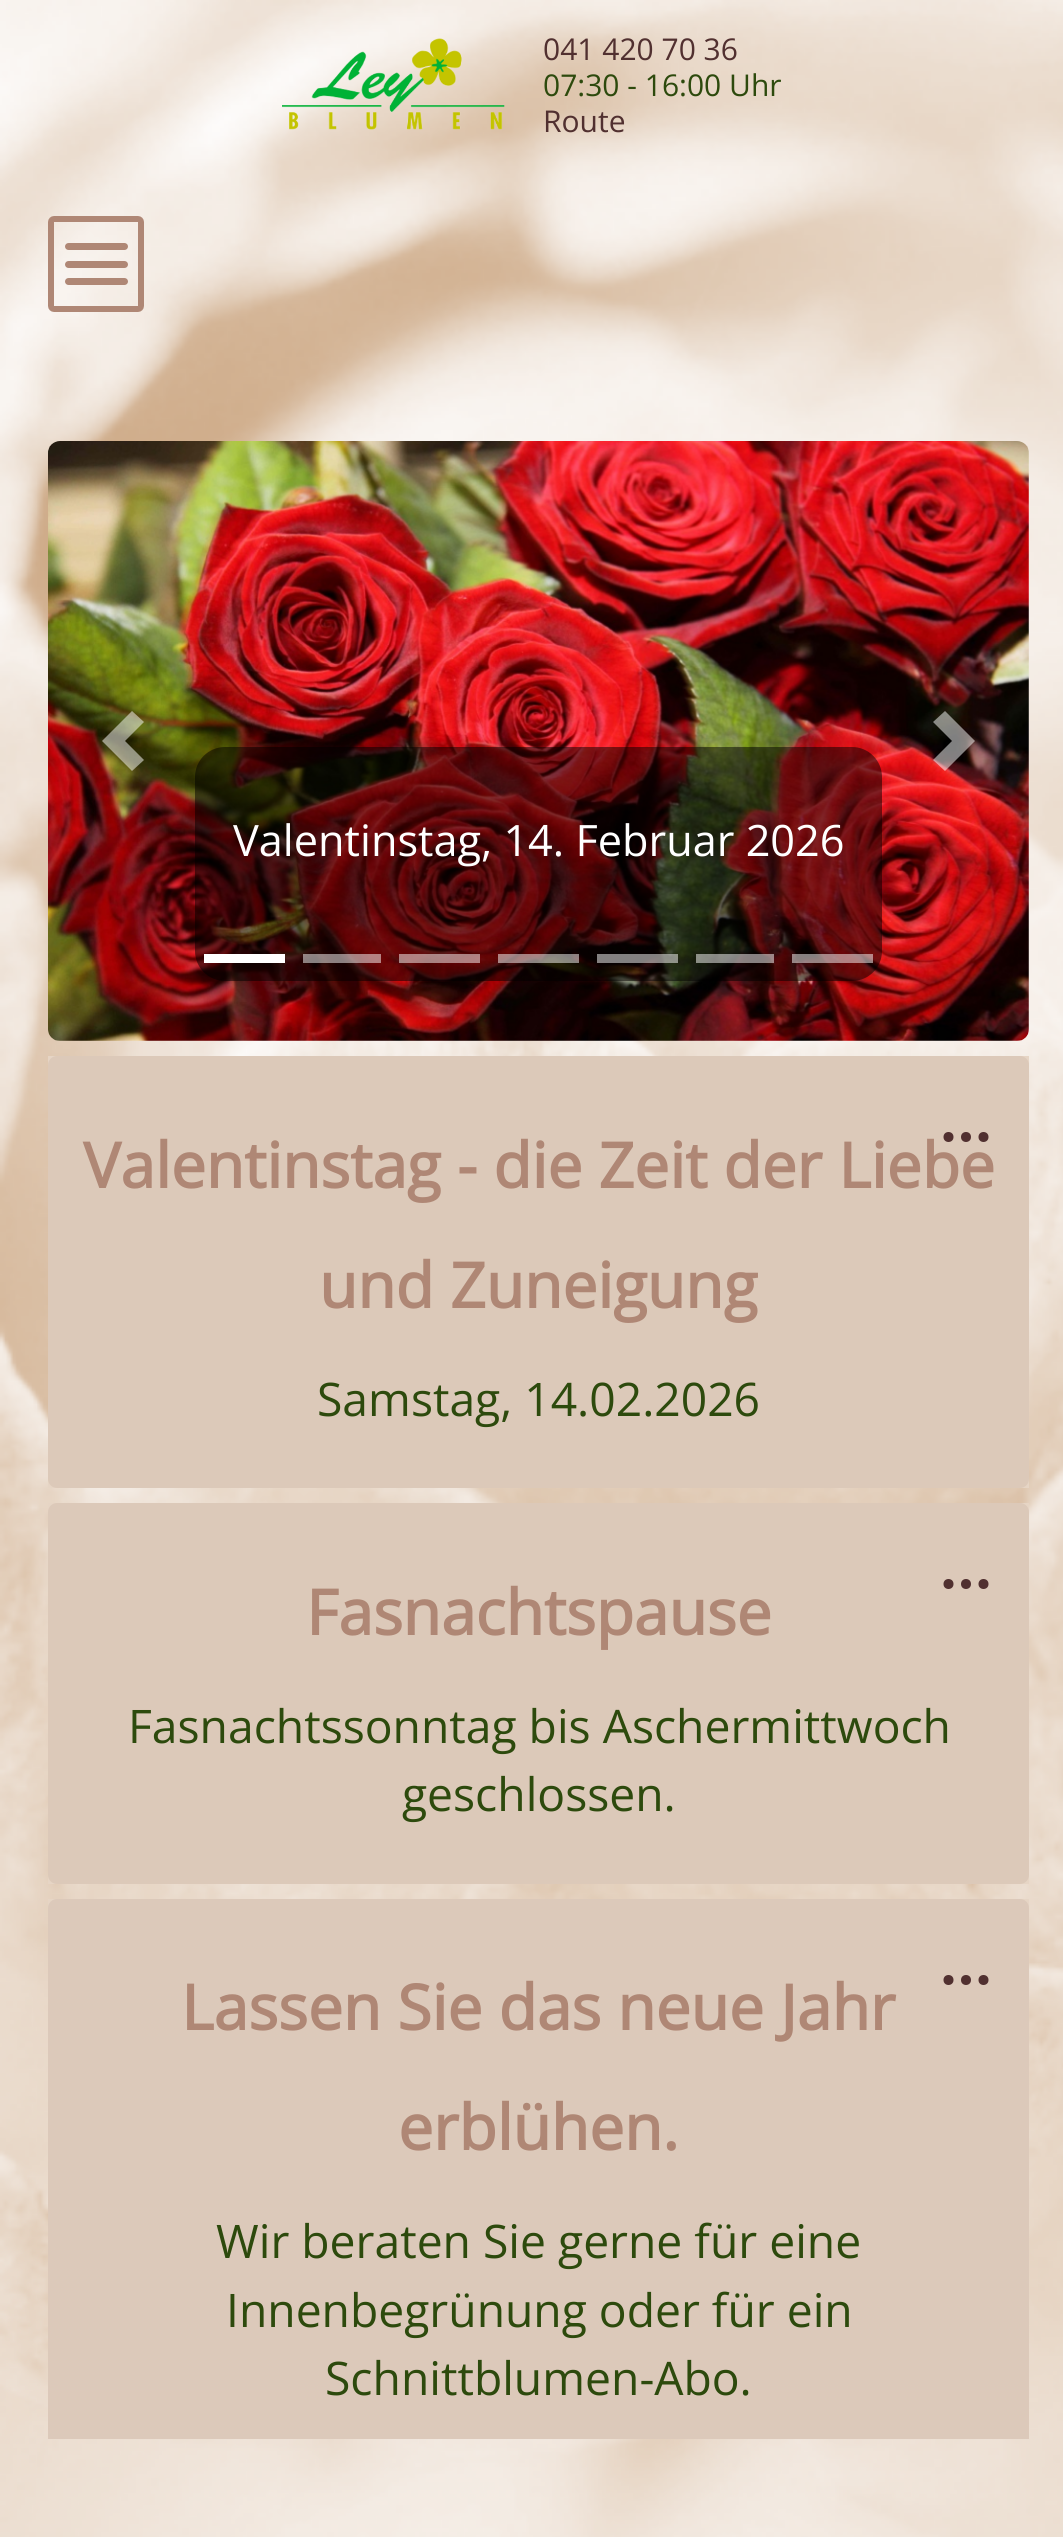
import math
import cairocffi as cairo

surface = cairo.ImageSurface(cairo.FORMAT_RGB24, 1063, 2537)
cr = cairo.Context(surface)
options = cairo.FontOptions()
options.set_hint_metrics(cairo.HINT_METRICS_OFF)
options.set_hint_style(cairo.HINT_STYLE_NONE)
cr.set_font_options(options)
cr.set_miter_limit(4)


def use_color(code):
    cr.set_source_rgb(*(v / 255 for v in bytes.fromhex(code[-6:])))


def round_rect(x, y, w, h, r):
    cr.new_sub_path()
    for i, (u, v) in enumerate([(x + w - r, y + h - r), (x + r, y + h - r), (x + r, y + r), (x + w - r, y + r)]):
        cr.arc(u, v, r, i * math.pi / 2, (i + 1) * math.pi / 2)
    cr.close_path()


def picture(path, x, y, w, h):
    cr.save()
    cr.set_source_surface(cairo.ImageSurface.create_from_png(path), x, y)
    cr.rectangle(x, y, w, h)
    cr.fill()
    cr.restore()


use_color("#ffffff")
cr.paint()
picture("img1.png", 0, 0, 1063, 2537)
picture("img2.png", 282, 38, 223, 92)
cr.select_font_face("Open Sans")
cr.set_font_size(30)
use_color("#513030")
cr.move_to(543, 60)
cr.show_text("041 420 70 36")
use_color("#2d4a0d")
cr.move_to(543, 96)
cr.show_text("07:30 - 16:00 Uhr")
use_color("#513030")
cr.move_to(543, 132)
cr.show_text("Route")
picture("img3.png", 48, 441, 981, 600)
cr.set_source_rgba(1, 1, 1, 0.5)
cr.new_path()
cr.move_to(132, 711)
cr.line_to(102, 741)
cr.line_to(132, 771)
cr.line_to(144, 760)
cr.line_to(125, 741)
cr.line_to(144, 722)
cr.close_path()
cr.fill()
cr.new_path()
cr.move_to(945, 711)
cr.line_to(933, 722)
cr.line_to(952, 741)
cr.line_to(933, 760)
cr.line_to(945, 771)
cr.line_to(975, 741)
cr.close_path()
cr.fill()
cr.set_source_rgba(0, 0, 0, 0.5)
round_rect(195, 747, 687, 234, 30)
cr.fill()
cr.set_font_size(43.25)
use_color("#ffffff")
cr.move_to(233, 856)
cr.show_text("Valentinstag, 14. Februar 2026")
cr.rectangle(204, 954, 81, 9)
cr.fill()
cr.set_source_rgba(1, 1, 1, 0.5)
cr.rectangle(303, 954, 78, 9)
cr.fill()
cr.rectangle(399, 954, 81, 9)
cr.fill()
cr.rectangle(498, 954, 81, 9)
cr.fill()
cr.rectangle(597, 954, 81, 9)
cr.fill()
cr.rectangle(696, 954, 78, 9)
cr.fill()
cr.rectangle(792, 954, 81, 9)
cr.fill()
use_color("#e6d5c5")
cr.rectangle(48, 1056, 981, 432)
cr.fill()
use_color("#dcc9b9")
round_rect(48, 1056, 981, 432, 9)
cr.fill()
cr.select_font_face("Open Sans", cairo.FONT_SLANT_NORMAL, cairo.FONT_WEIGHT_BOLD)
cr.set_font_size(62.4)
use_color("#af8775")
cr.move_to(83, 1188)
cr.show_text("Valentinstag - die Zeit der Liebe")
use_color("#513030")
cr.new_path()
cr.arc(948.5, 1137, 5, 0, 2 * math.pi)
cr.fill()
cr.arc(966, 1137, 5, 0, 2 * math.pi)
cr.fill()
cr.arc(983.5, 1137, 5, 0, 2 * math.pi)
cr.fill()
use_color("#af8775")
cr.move_to(319, 1308)
cr.show_text("und Zuneigung")
cr.select_font_face("Open Sans")
cr.set_font_size(46.25)
use_color("#2d4a0d")
cr.move_to(317, 1416)
cr.show_text("Samstag, 14.02.2026")
use_color("#e6d5c5")
cr.rectangle(48, 1503, 981, 381)
cr.fill()
use_color("#dcc9b9")
round_rect(48, 1503, 981, 381, 9)
cr.fill()
use_color("#513030")
cr.arc(948.5, 1584, 5, 0, 2 * math.pi)
cr.fill()
cr.arc(966, 1584, 5, 0, 2 * math.pi)
cr.fill()
cr.arc(983.5, 1584, 5, 0, 2 * math.pi)
cr.fill()
cr.select_font_face("Open Sans", cairo.FONT_SLANT_NORMAL, cairo.FONT_WEIGHT_BOLD)
cr.set_font_size(62.4)
use_color("#af8775")
cr.move_to(306, 1635)
cr.show_text("Fasnachtspause")
cr.select_font_face("Open Sans")
cr.set_font_size(46.25)
use_color("#2d4a0d")
cr.move_to(128, 1743)
cr.show_text("Fasnachtssonntag bis Aschermittwoch")
cr.move_to(402, 1811)
cr.show_text("geschlossen.")
use_color("#e6d5c5")
cr.rectangle(48, 1899, 981, 9)
cr.fill()
use_color("#dcc9ba")
cr.new_path()
cr.move_to(57, 1899)
cr.line_to(1020, 1899)
cr.curve_to(1025, 1899, 1029, 1903, 1029, 1908)
cr.line_to(1029, 2439)
cr.line_to(48, 2439)
cr.line_to(48, 1908)
cr.curve_to(48, 1903, 52, 1899, 57, 1899)
cr.close_path()
cr.fill()
use_color("#513030")
cr.arc(948.5, 1980, 5, 0, 2 * math.pi)
cr.fill()
cr.arc(966, 1980, 5, 0, 2 * math.pi)
cr.fill()
cr.arc(983.5, 1980, 5, 0, 2 * math.pi)
cr.fill()
cr.select_font_face("Open Sans", cairo.FONT_SLANT_NORMAL, cairo.FONT_WEIGHT_BOLD)
cr.set_font_size(62.4)
use_color("#af8775")
cr.move_to(181, 2030)
cr.show_text("Lassen Sie das neue Jahr")
cr.move_to(398, 2150)
cr.show_text("erblühen.")
cr.select_font_face("Open Sans")
cr.set_font_size(46.25)
use_color("#2d4a0d")
cr.move_to(216, 2258)
cr.show_text("Wir beraten Sie gerne für eine")
cr.move_to(226, 2327)
cr.show_text("Innenbegrünung oder für ein")
cr.move_to(325, 2395)
cr.show_text("Schnittblumen-Abo.")
round_rect(51, 219, 90, 90, 3)
use_color("#af8775")
cr.set_line_width(6)
cr.stroke()
round_rect(65, 243, 63, 7, 3.5)
cr.fill()
round_rect(65, 261, 63, 7, 3.5)
cr.fill()
round_rect(65, 278, 63, 7, 3.5)
cr.fill()
surface.write_to_png("result.png")
